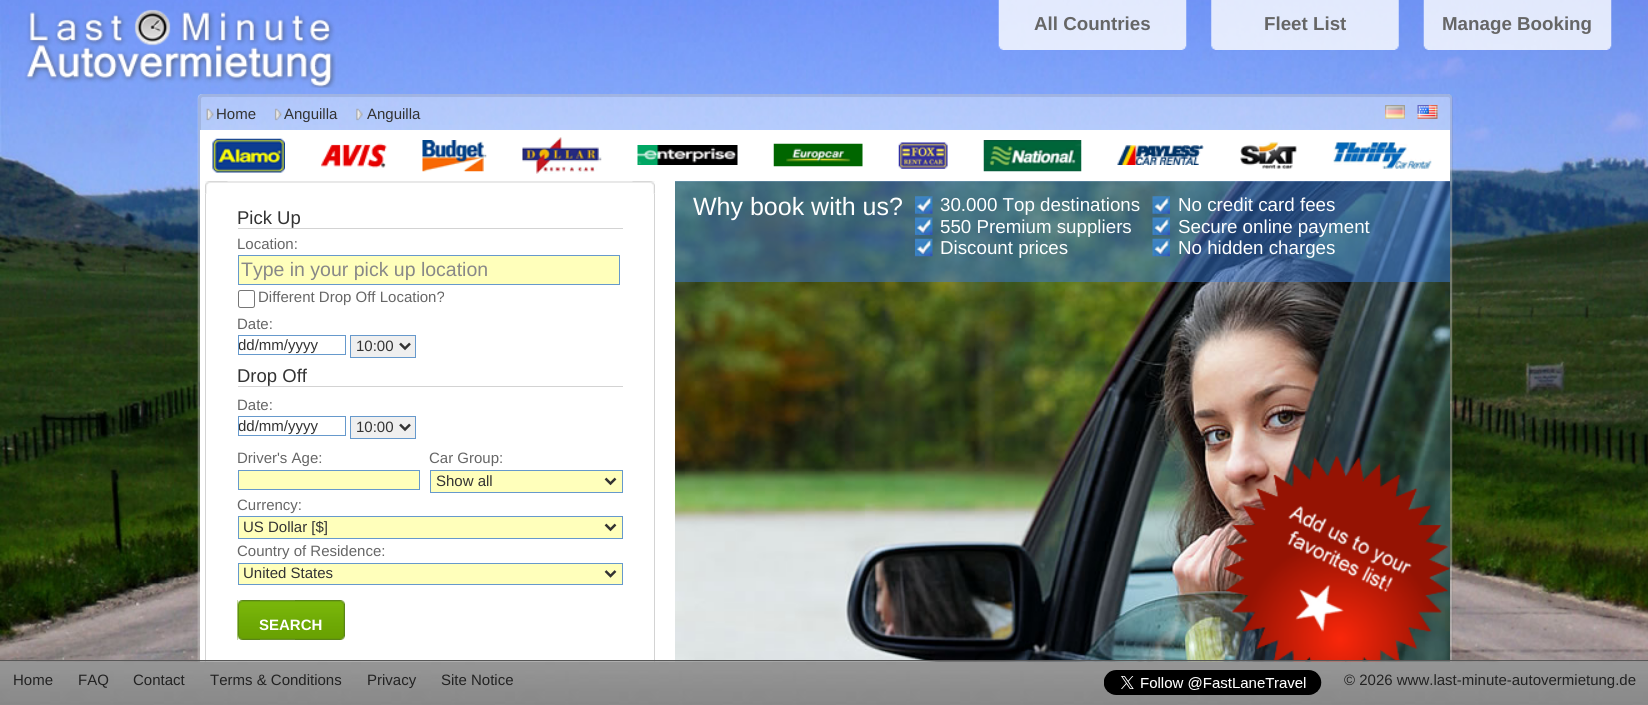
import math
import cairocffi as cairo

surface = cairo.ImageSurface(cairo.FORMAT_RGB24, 1648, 705)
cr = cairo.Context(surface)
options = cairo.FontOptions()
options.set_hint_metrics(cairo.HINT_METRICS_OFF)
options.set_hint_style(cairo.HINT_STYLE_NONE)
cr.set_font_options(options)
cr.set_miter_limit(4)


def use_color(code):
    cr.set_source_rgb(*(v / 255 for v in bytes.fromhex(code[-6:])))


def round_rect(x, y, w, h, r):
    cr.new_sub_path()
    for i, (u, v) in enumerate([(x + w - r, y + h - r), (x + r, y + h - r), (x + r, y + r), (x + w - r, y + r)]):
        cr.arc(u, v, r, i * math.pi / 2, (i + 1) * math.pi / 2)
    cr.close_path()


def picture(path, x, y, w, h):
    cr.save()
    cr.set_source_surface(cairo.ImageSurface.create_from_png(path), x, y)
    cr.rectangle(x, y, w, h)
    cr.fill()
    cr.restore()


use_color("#ffffff")
cr.paint()
picture("img1.png", 0, 0, 1648, 662)
picture("img2.png", 25, 9, 311, 79)
picture("img3.png", 998, 0, 189, 50)
cr.select_font_face("Liberation Sans", cairo.FONT_SLANT_NORMAL, cairo.FONT_WEIGHT_BOLD)
cr.set_font_size(18.75)
use_color("#666666")
cr.move_to(1034, 30)
cr.show_text("All Countries")
picture("img4.png", 1211, 0, 188, 50)
cr.move_to(1264, 30)
cr.show_text("Fleet List")
picture("img5.png", 1423, 0, 189, 50)
cr.move_to(1442, 30)
cr.show_text("Manage Booking")
picture("img6.png", 197, 94, 1256, 568)
round_rect(199.5, 95.5, 1252, 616, 3.5)
cr.set_source_rgba(0, 0, 0, 0.1)
cr.set_line_width(3)
cr.stroke()
picture("img7.png", 206, 108, 8, 13)
cr.select_font_face("Liberation Sans")
cr.set_font_size(15)
use_color("#333333")
cr.move_to(216, 119)
cr.show_text("Home")
picture("img8.png", 274, 108, 8, 13)
cr.move_to(284, 119)
cr.show_text("Anguilla")
picture("img9.png", 356, 108, 7, 13)
cr.move_to(367, 119)
cr.show_text("Anguilla")
picture("img10.png", 1385, 105, 20, 14)
picture("img11.png", 1417, 105, 21, 14)
use_color("#ffffff")
cr.rectangle(200, 130, 1250, 532)
cr.fill()
picture("img12.png", 212, 138, 73, 35)
picture("img13.png", 321, 143, 66, 25)
picture("img14.png", 422, 140, 65, 32)
picture("img15.png", 522, 137, 80, 37)
picture("img16.png", 637, 145, 101, 20)
picture("img17.png", 773, 143, 90, 24)
picture("img18.png", 898, 142, 50, 27)
picture("img19.png", 983, 140, 99, 32)
picture("img20.png", 1117, 145, 87, 20)
picture("img21.png", 1240, 141, 57, 28)
picture("img22.png", 1333, 142, 99, 27)
picture("img23.png", 205, 181, 450, 2)
picture("img24.png", 205, 181, 23, 13)
picture("img25.png", 632, 181, 23, 13)
use_color("#d3d3d3")
cr.rectangle(654, 194, 1, 472)
cr.fill()
cr.rectangle(205, 194, 1, 472)
cr.fill()
cr.rectangle(238, 228, 385, 1)
cr.fill()
cr.set_font_size(18.5)
use_color("#333333")
cr.move_to(237, 224)
cr.show_text("Pick Up")
cr.set_font_size(15)
use_color("#666666")
cr.move_to(237, 249)
cr.show_text("Location:")
use_color("#ffffbb")
cr.rectangle(238.5, 255.5, 381, 29)
cr.fill_preserve()
use_color("#6699cc")
cr.set_line_width(1)
cr.stroke()
cr.set_font_size(19.5)
use_color("#888888")
cr.move_to(241, 276)
cr.show_text("Type in your pick up location")
round_rect(238.5, 290.5, 16, 17, 2)
use_color("#767676")
cr.stroke()
cr.set_font_size(15)
use_color("#666666")
cr.move_to(258, 302)
cr.show_text("Different Drop Off Location?")
cr.move_to(237, 329)
cr.show_text("Date:")
cr.rectangle(238.5, 335.5, 107, 19)
use_color("#6699cc")
cr.stroke()
cr.save()
cr.rectangle(239, 336, 106, 18)
cr.clip()
use_color("#333333")
cr.move_to(238, 350)
cr.show_text("dd/mm/yyyy")
cr.restore()
use_color("#efefef")
cr.rectangle(350.5, 335.5, 65, 22)
cr.fill_preserve()
use_color("#6699cc")
cr.stroke()
cr.new_path()
cr.move_to(400, 343.5)
cr.line_to(405, 348.5)
cr.line_to(410, 343.5)
use_color("#333333")
cr.set_line_width(2.5)
cr.stroke()
cr.move_to(356, 351)
cr.show_text("10:00")
use_color("#d3d3d3")
cr.rectangle(238, 386, 385, 1)
cr.fill()
cr.set_font_size(18.5)
use_color("#333333")
cr.move_to(237, 382)
cr.show_text("Drop Off")
cr.set_font_size(15)
use_color("#666666")
cr.move_to(237, 410)
cr.show_text("Date:")
cr.rectangle(238.5, 416.5, 107, 19)
use_color("#6699cc")
cr.set_line_width(1)
cr.stroke()
cr.save()
cr.rectangle(239, 418, 106, 17)
cr.clip()
use_color("#333333")
cr.move_to(238, 431)
cr.show_text("dd/mm/yyyy")
cr.restore()
use_color("#efefef")
cr.rectangle(350.5, 416.5, 65, 22)
cr.fill_preserve()
use_color("#6699cc")
cr.stroke()
cr.new_path()
cr.move_to(400, 424.5)
cr.line_to(405, 429.5)
cr.line_to(410, 424.5)
use_color("#333333")
cr.set_line_width(2.5)
cr.stroke()
cr.move_to(356, 432)
cr.show_text("10:00")
use_color("#666666")
cr.move_to(237, 463)
cr.show_text("Driver's Age:")
use_color("#ffffbb")
cr.rectangle(238.5, 470.5, 181, 19)
cr.fill_preserve()
use_color("#6699cc")
cr.set_line_width(1)
cr.stroke()
use_color("#666666")
cr.move_to(429, 463)
cr.show_text("Car Group:")
use_color("#ffffbb")
cr.rectangle(430.5, 470.5, 192, 22)
cr.fill_preserve()
use_color("#6699cc")
cr.stroke()
cr.new_path()
cr.move_to(605.5, 478.5)
cr.line_to(610.5, 483.5)
cr.line_to(615.5, 478.5)
use_color("#333333")
cr.set_line_width(2.5)
cr.stroke()
cr.move_to(436, 486)
cr.show_text("Show all")
use_color("#666666")
cr.move_to(237, 510)
cr.show_text("Currency:")
use_color("#ffffbb")
cr.rectangle(238.5, 516.5, 384, 22)
cr.fill_preserve()
use_color("#6699cc")
cr.set_line_width(1)
cr.stroke()
cr.new_path()
cr.move_to(605.5, 524.5)
cr.line_to(610.5, 529.5)
cr.line_to(615.5, 524.5)
use_color("#333333")
cr.set_line_width(2.5)
cr.stroke()
cr.move_to(243, 532)
cr.show_text("US Dollar [$]")
use_color("#666666")
cr.move_to(237, 556)
cr.show_text("Country of Residence:")
use_color("#ffffbb")
cr.rectangle(238.5, 563.5, 384, 21)
cr.fill_preserve()
use_color("#6699cc")
cr.set_line_width(1)
cr.stroke()
cr.new_path()
cr.move_to(605.5, 571)
cr.line_to(610.5, 576)
cr.line_to(615.5, 571)
use_color("#333333")
cr.set_line_width(2.5)
cr.stroke()
cr.move_to(243, 578)
cr.show_text("United States")
picture("img26.png", 237, 600, 58, 40)
picture("img27.png", 237, 600, 23, 40)
picture("img28.png", 295, 600, 50, 40)
cr.select_font_face("Liberation Sans", cairo.FONT_SLANT_NORMAL, cairo.FONT_WEIGHT_BOLD)
use_color("#ffffff")
cr.move_to(259, 630)
cr.show_text("SEARCH")
picture("img29.png", 675, 181, 775, 481)
cr.set_source_rgba(0.22, 0.478, 0.851, 0.5)
cr.rectangle(675, 181, 775, 101)
cr.fill()
cr.select_font_face("Liberation Sans")
cr.set_font_size(25)
use_color("#ffffff")
cr.move_to(693, 215)
cr.show_text("Why book with us?")
picture("img30.png", 915, 196, 18, 18)
cr.set_font_size(18.75)
cr.move_to(940, 211)
cr.show_text("30.000 Top destinations")
picture("img31.png", 915, 217, 18, 18)
cr.move_to(940, 233)
cr.show_text("550 Premium suppliers")
picture("img32.png", 915, 238, 18, 19)
cr.move_to(940, 254)
cr.show_text("Discount prices")
picture("img33.png", 1152, 196, 18, 18)
cr.move_to(1178, 211)
cr.show_text("No credit card fees")
picture("img34.png", 1152, 217, 18, 18)
cr.move_to(1178, 233)
cr.show_text("Secure online payment")
picture("img35.png", 1152, 238, 18, 19)
cr.move_to(1178, 254)
cr.show_text("No hidden charges")
picture("img36.png", 1223, 456, 228, 206)
picture("img37.png", 0, 661, 1648, 44)
use_color("#575757")
cr.rectangle(0, 660, 1648, 1)
cr.fill()
cr.set_font_size(15)
use_color("#222222")
cr.move_to(13, 685)
cr.show_text("Home")
cr.move_to(78, 685)
cr.show_text("FAQ")
cr.move_to(133, 685)
cr.show_text("Contact")
cr.move_to(210, 685)
cr.show_text("Terms & Conditions")
cr.move_to(367, 685)
cr.show_text("Privacy")
cr.move_to(441, 685)
cr.show_text("Site Notice")
picture("img38.png", 1104, 670, 218, 25)
cr.move_to(1344, 685)
cr.show_text("© 2026 www.last-minute-autovermietung.de")
surface.write_to_png("result.png")
